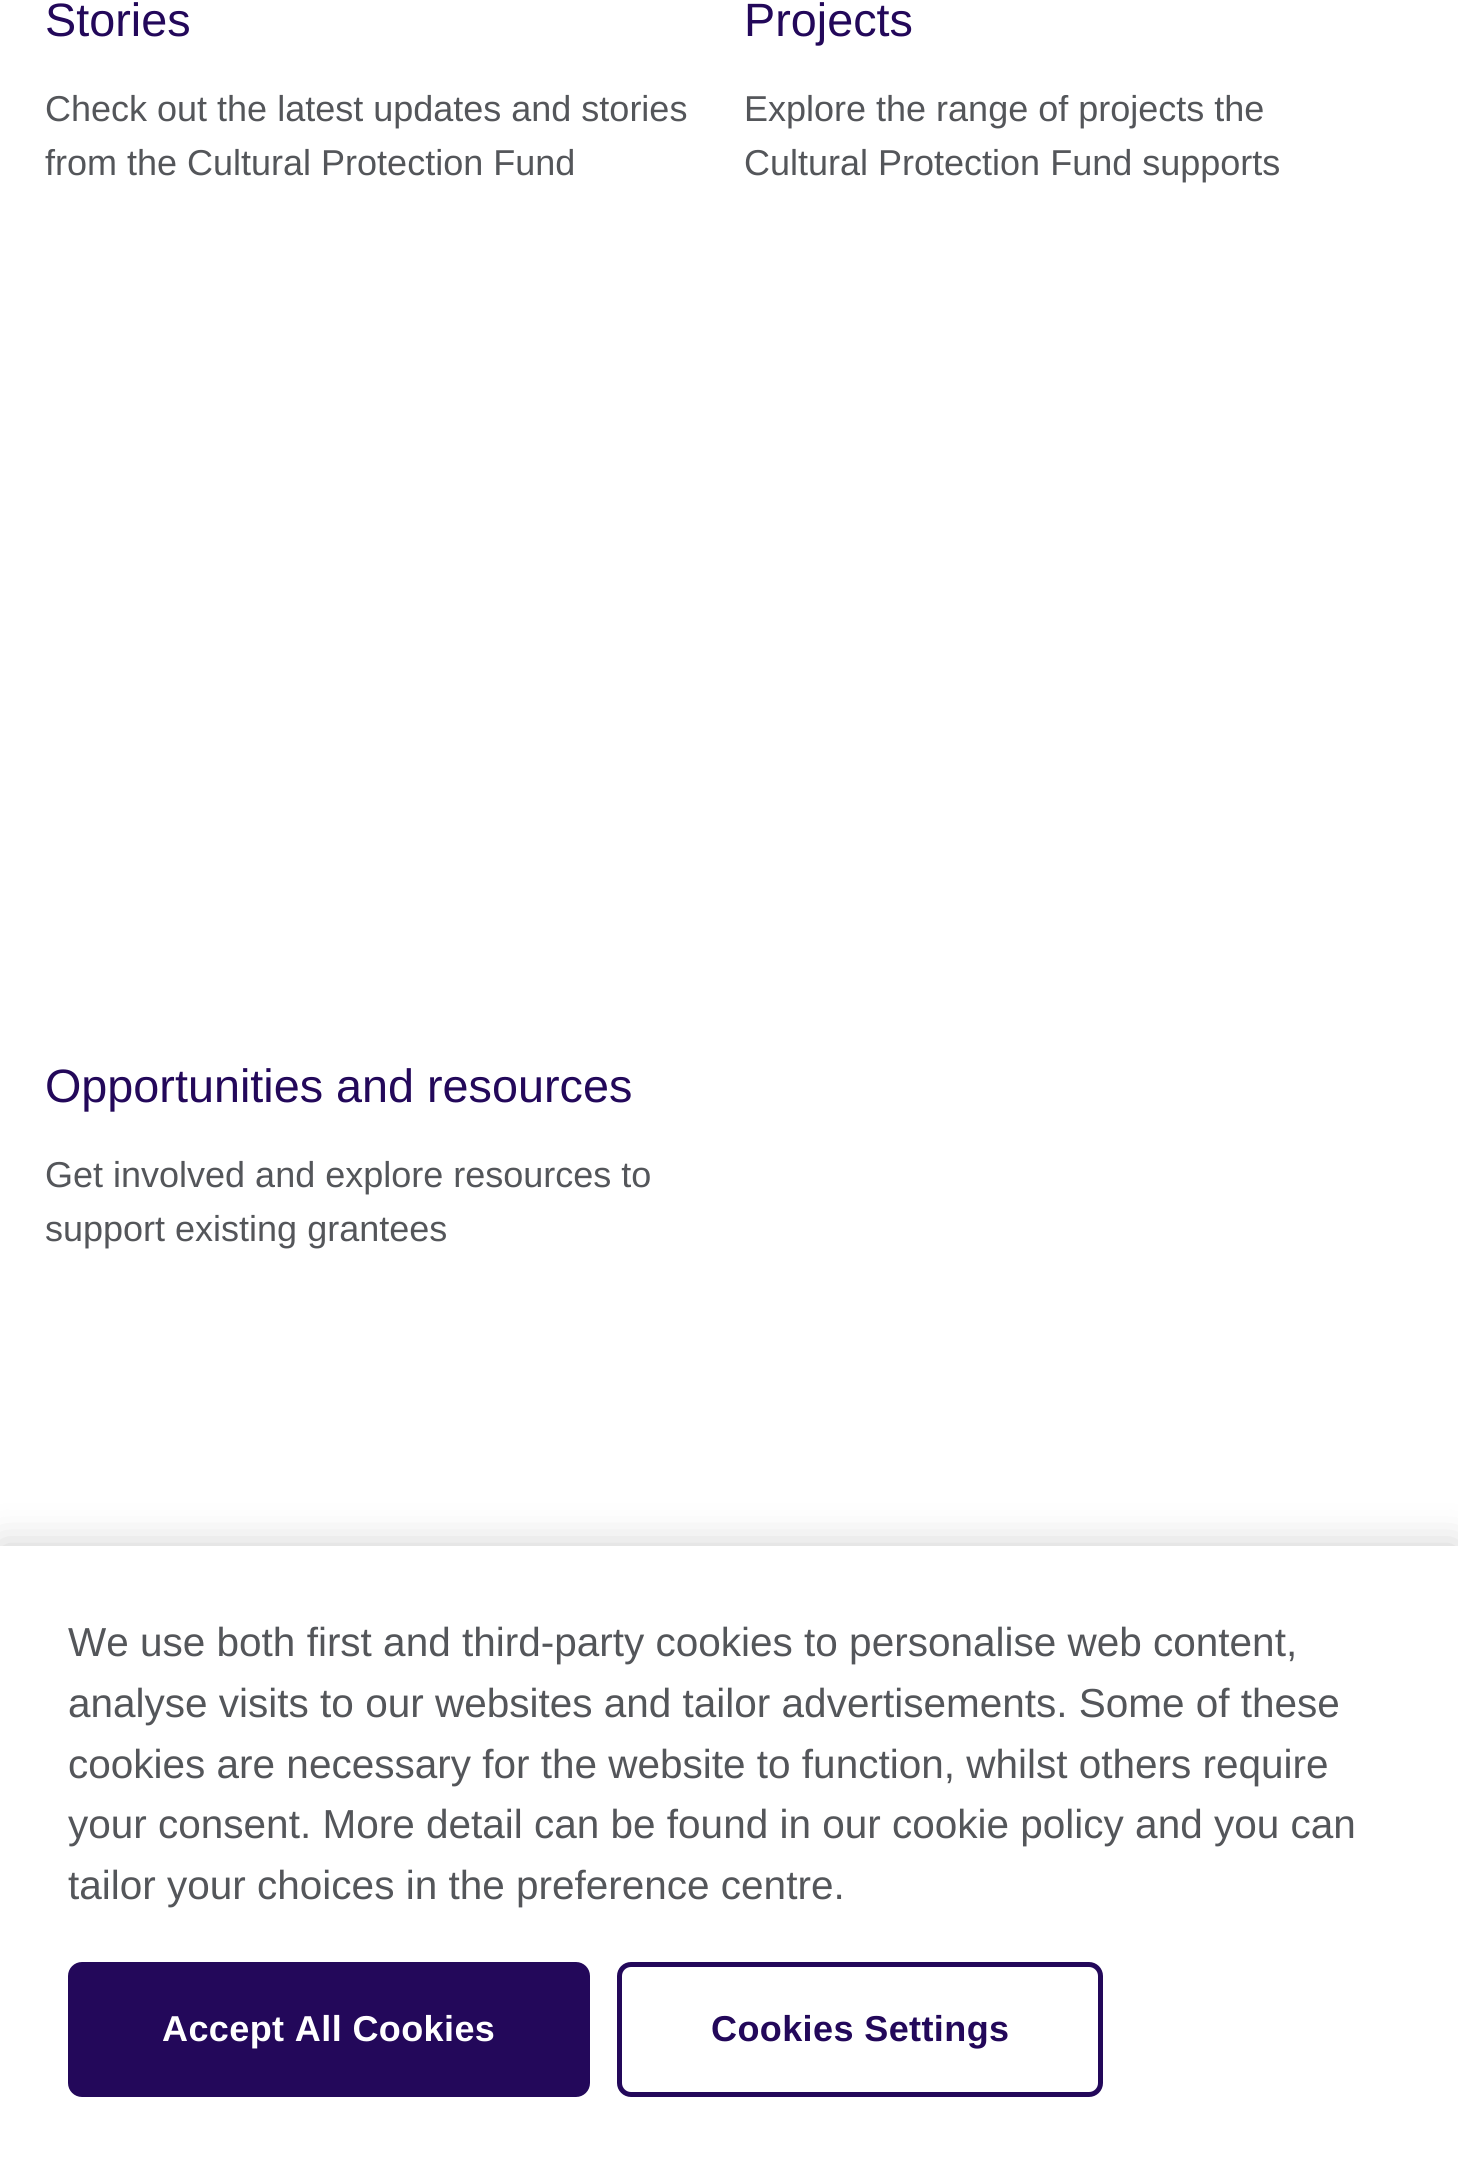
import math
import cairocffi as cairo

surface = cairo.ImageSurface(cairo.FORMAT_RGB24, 1458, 2173)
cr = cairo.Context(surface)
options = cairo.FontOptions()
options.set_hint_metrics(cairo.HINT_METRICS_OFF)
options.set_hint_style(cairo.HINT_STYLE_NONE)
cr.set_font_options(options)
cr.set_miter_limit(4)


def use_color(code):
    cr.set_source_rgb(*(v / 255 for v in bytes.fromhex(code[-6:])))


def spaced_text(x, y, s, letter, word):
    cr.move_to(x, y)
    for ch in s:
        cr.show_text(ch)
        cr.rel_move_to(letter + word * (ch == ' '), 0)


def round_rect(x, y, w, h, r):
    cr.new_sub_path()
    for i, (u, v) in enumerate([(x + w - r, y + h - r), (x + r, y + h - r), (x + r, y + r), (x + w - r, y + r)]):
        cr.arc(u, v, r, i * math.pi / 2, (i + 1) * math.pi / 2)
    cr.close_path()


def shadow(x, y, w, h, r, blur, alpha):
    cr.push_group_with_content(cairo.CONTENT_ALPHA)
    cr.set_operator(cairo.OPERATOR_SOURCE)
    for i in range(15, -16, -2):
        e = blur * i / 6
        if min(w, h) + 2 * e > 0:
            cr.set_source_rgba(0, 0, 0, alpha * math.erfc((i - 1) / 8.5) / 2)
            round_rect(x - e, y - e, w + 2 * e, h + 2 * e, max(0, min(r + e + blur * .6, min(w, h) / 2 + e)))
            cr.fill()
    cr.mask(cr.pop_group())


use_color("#ffffff")
cr.paint()
cr.select_font_face("Liberation Sans")
cr.set_font_size(46.75)
use_color("#23085a")
cr.move_to(45, 36)
cr.show_text("Stories")
cr.set_font_size(36)
use_color("#54565a")
cr.move_to(45, 121)
cr.show_text("Check out the latest updates and stories")
cr.move_to(45, 175)
cr.show_text("from the Cultural Protection Fund")
cr.set_font_size(46.75)
use_color("#23085a")
cr.move_to(744, 36)
cr.show_text("Projects")
cr.set_font_size(36)
use_color("#54565a")
cr.move_to(744, 121)
cr.show_text("Explore the range of projects the")
cr.move_to(744, 175)
cr.show_text("Cultural Protection Fund supports")
cr.set_font_size(46.75)
use_color("#23085a")
cr.move_to(45, 1102)
cr.show_text("Opportunities and resources")
cr.set_font_size(36)
use_color("#54565a")
cr.move_to(45, 1187)
cr.show_text("Get involved and explore resources to")
cr.move_to(45, 1241)
cr.show_text("support existing grantees")
use_color("#000000")
shadow(0, 1546, 1458, 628, 0, 20, 0.2)
use_color("#ffffff")
cr.rectangle(0, 1546, 1458, 627)
cr.fill()
cr.set_font_size(40.5)
use_color("#54565a")
cr.move_to(68, 1656)
cr.show_text("We use both first and third-party cookies to personalise web content,")
cr.move_to(68, 1717)
cr.show_text("analyse visits to our websites and tailor advertisements. Some of these")
cr.move_to(68, 1778)
cr.show_text("cookies are necessary for the website to function, whilst others require")
cr.move_to(68, 1838)
cr.show_text("your consent. More detail can be found in our cookie policy and you can")
cr.move_to(68, 1899)
cr.show_text("tailor your choices in the preference centre.")
use_color("#23085a")
round_rect(70.5, 1964.5, 517, 130, 11.5)
cr.fill_preserve()
cr.set_line_width(5)
cr.stroke()
cr.select_font_face("Liberation Sans", cairo.FONT_SLANT_NORMAL, cairo.FONT_WEIGHT_BOLD)
cr.set_font_size(36)
use_color("#ffffff")
spaced_text(162, 2041, "Accept All Cookies", 0.4, 0)
round_rect(619.5, 1964.5, 481, 130, 11.5)
use_color("#23085a")
cr.stroke()
spaced_text(711, 2041, "Cookies Settings", 0.4, 0)
surface.write_to_png("result.png")
